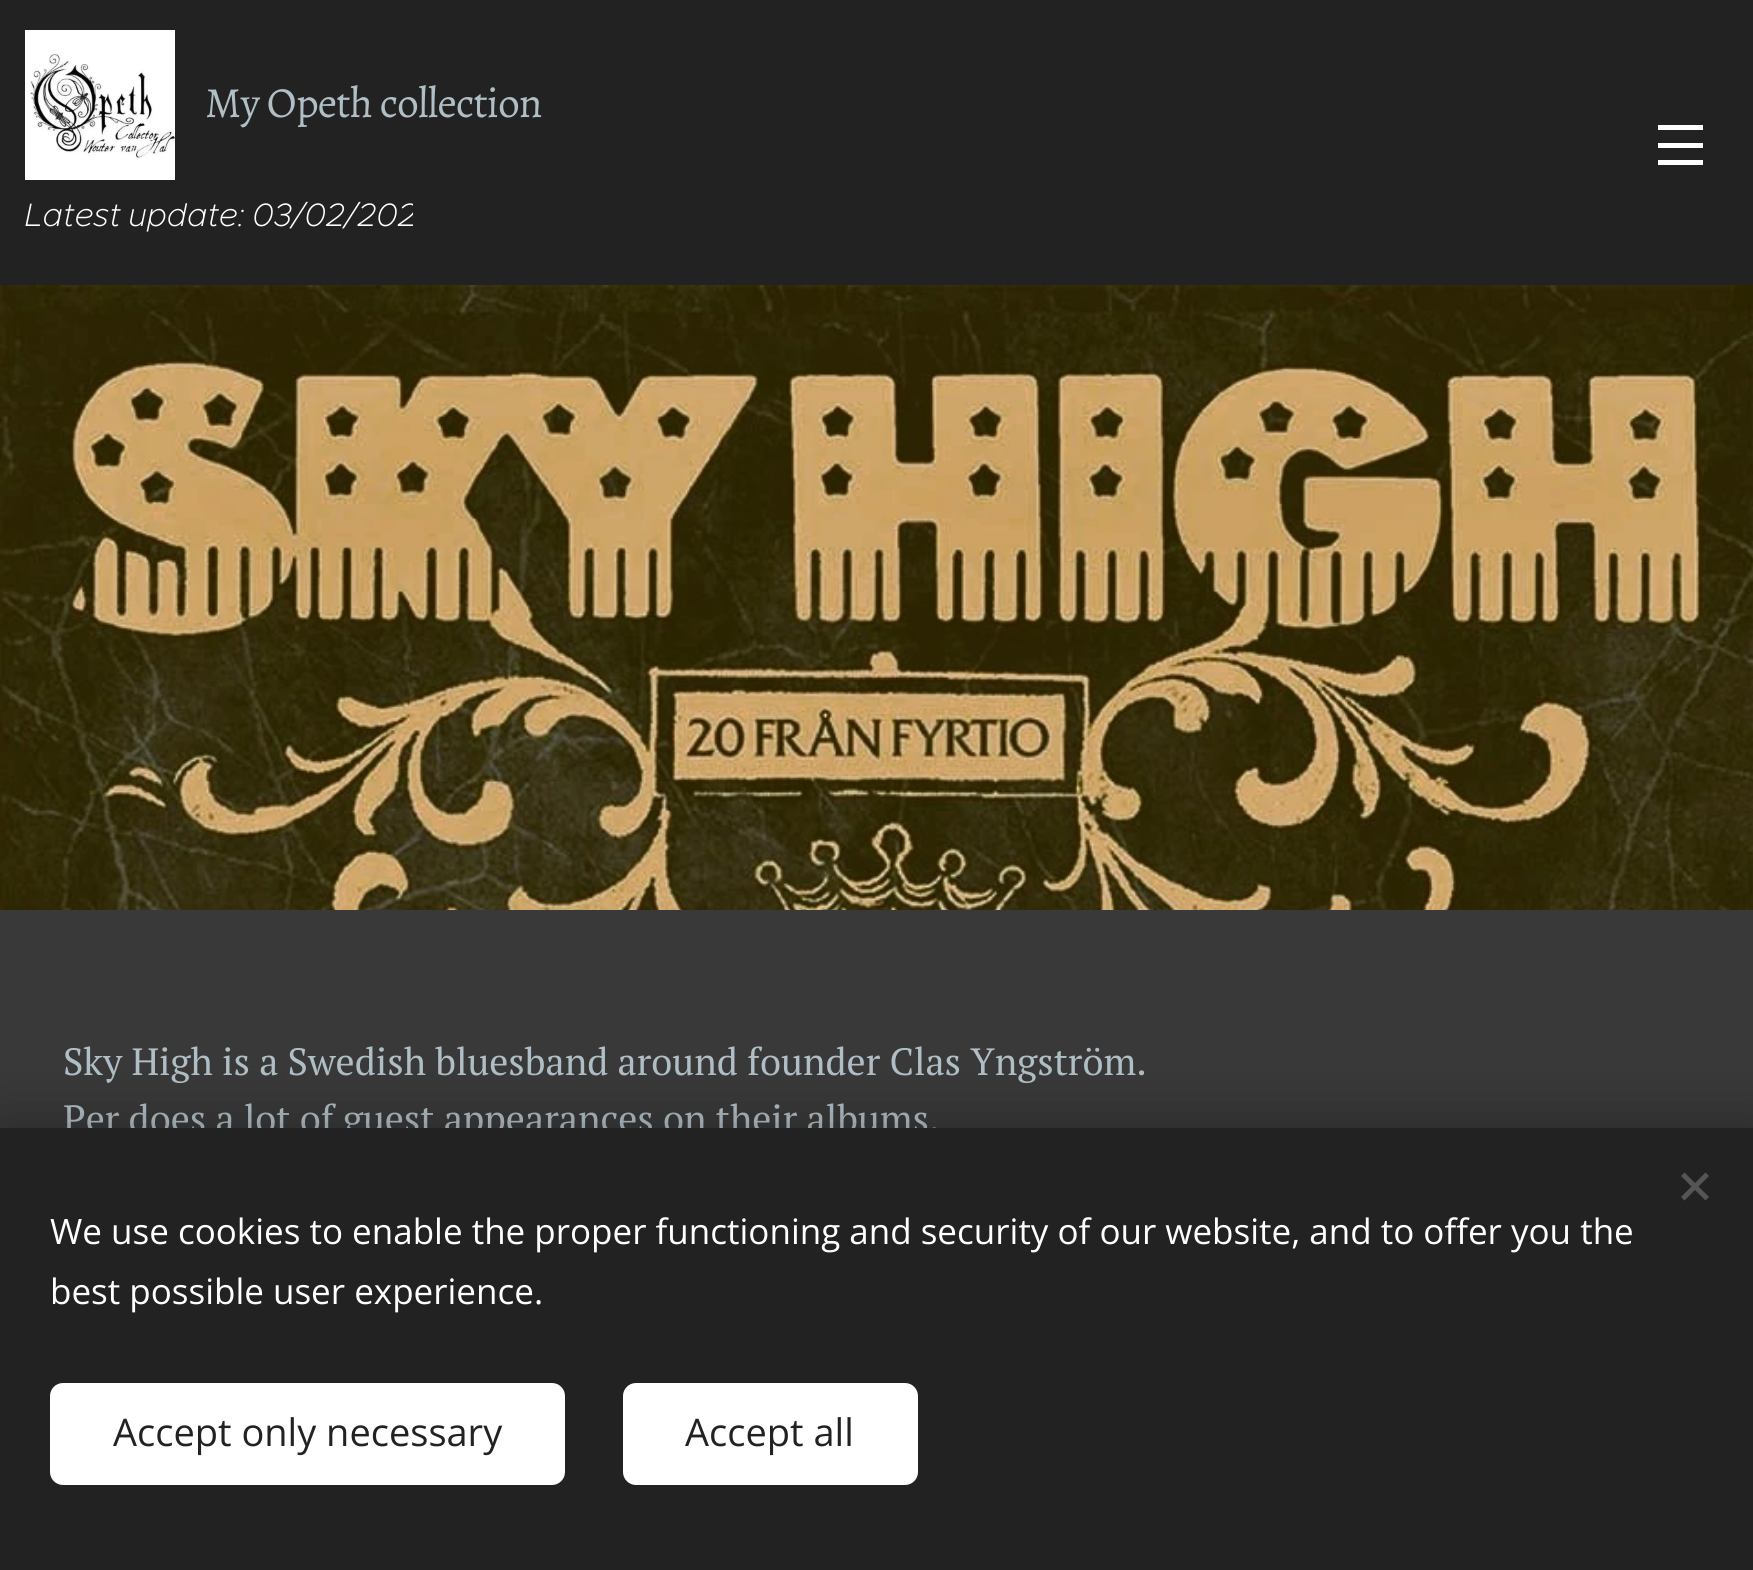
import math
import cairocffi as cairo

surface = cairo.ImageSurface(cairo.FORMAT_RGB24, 1753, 1570)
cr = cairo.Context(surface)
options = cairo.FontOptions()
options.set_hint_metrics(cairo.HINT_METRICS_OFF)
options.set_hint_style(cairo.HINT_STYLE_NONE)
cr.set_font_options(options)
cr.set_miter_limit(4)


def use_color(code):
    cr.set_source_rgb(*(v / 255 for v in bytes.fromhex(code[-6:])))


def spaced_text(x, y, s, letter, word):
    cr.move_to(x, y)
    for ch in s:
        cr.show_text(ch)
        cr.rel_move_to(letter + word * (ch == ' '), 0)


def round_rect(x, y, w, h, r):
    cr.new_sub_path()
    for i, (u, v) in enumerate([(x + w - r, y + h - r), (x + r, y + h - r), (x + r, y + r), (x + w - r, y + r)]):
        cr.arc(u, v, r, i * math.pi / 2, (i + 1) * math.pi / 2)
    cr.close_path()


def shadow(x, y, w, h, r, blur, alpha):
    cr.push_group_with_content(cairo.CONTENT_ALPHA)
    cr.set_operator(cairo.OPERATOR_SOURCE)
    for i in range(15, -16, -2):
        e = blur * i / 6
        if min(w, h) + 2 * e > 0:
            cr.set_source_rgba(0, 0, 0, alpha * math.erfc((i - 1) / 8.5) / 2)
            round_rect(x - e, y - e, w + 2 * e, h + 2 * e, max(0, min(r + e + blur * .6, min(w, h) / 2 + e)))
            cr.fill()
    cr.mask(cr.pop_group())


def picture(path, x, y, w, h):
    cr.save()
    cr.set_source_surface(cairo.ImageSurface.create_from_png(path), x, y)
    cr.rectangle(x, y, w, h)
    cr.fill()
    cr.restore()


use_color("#ffffff")
cr.paint()
use_color("#222222")
cr.rectangle(0, 0, 1753, 285)
cr.fill()
picture("img1.png", 25, 30, 150, 150)
cr.select_font_face("Alegreya")
cr.set_font_size(43)
use_color("#b0bec5")
spaced_text(205, 117, "My Opeth collection", -0.75, 0)
cr.save()
cr.rectangle(18, 193, 395, 50)
cr.clip()
cr.select_font_face("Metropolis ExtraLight", cairo.FONT_SLANT_ITALIC)
cr.set_font_size(32.5)
use_color("#ffffff")
spaced_text(25, 226, "Latest update: 03/02/202", 0, -2)
cr.restore()
use_color("#ffffff")
cr.rectangle(1658, 143, 45, 5)
cr.fill()
cr.rectangle(1658, 125, 45, 5)
cr.fill()
cr.rectangle(1658, 160, 45, 5)
cr.fill()
picture("img2.png", 0, 285, 1753, 625)
use_color("#393939")
cr.rectangle(0, 910, 1753, 218)
cr.fill()
cr.select_font_face("PT Serif")
cr.set_font_size(38)
use_color("#b0bec5")
cr.move_to(63, 1075)
cr.show_text("Sky High is a Swedish bluesband around founder Clas Yngström.")
cr.move_to(63, 1132)
cr.show_text("Per does a lot of guest appearances on their albums.")
use_color("#000000")
shadow(0, 1128, 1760, 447, 0, 31, 0.33)
use_color("#222222")
cr.rectangle(0, 1128, 1753, 442)
cr.fill()
use_color("#555555")
cr.new_path()
cr.move_to(1681, 1197)
cr.line_to(1705.5, 1172.5)
cr.line_to(1709, 1176)
cr.line_to(1684.5, 1200.5)
cr.close_path()
cr.fill()
cr.new_path()
cr.move_to(1684.5, 1172.5)
cr.line_to(1709, 1197)
cr.line_to(1705.5, 1200.5)
cr.line_to(1681, 1176)
cr.close_path()
cr.fill()
cr.select_font_face("Open Sans")
cr.set_font_size(35)
use_color("#ffffff")
cr.move_to(50, 1244)
cr.show_text("We use cookies to enable the proper functioning and security of our website, and to offer you the")
cr.move_to(50, 1304)
cr.show_text("best possible user experience.")
round_rect(50, 1383, 515, 102, 13)
cr.fill()
cr.set_font_size(38)
use_color("#222222")
cr.move_to(113, 1446)
cr.show_text("Accept only necessary")
use_color("#ffffff")
round_rect(623, 1383, 295, 102, 13)
cr.fill()
use_color("#222222")
cr.move_to(685, 1446)
cr.show_text("Accept all")
surface.write_to_png("result.png")
